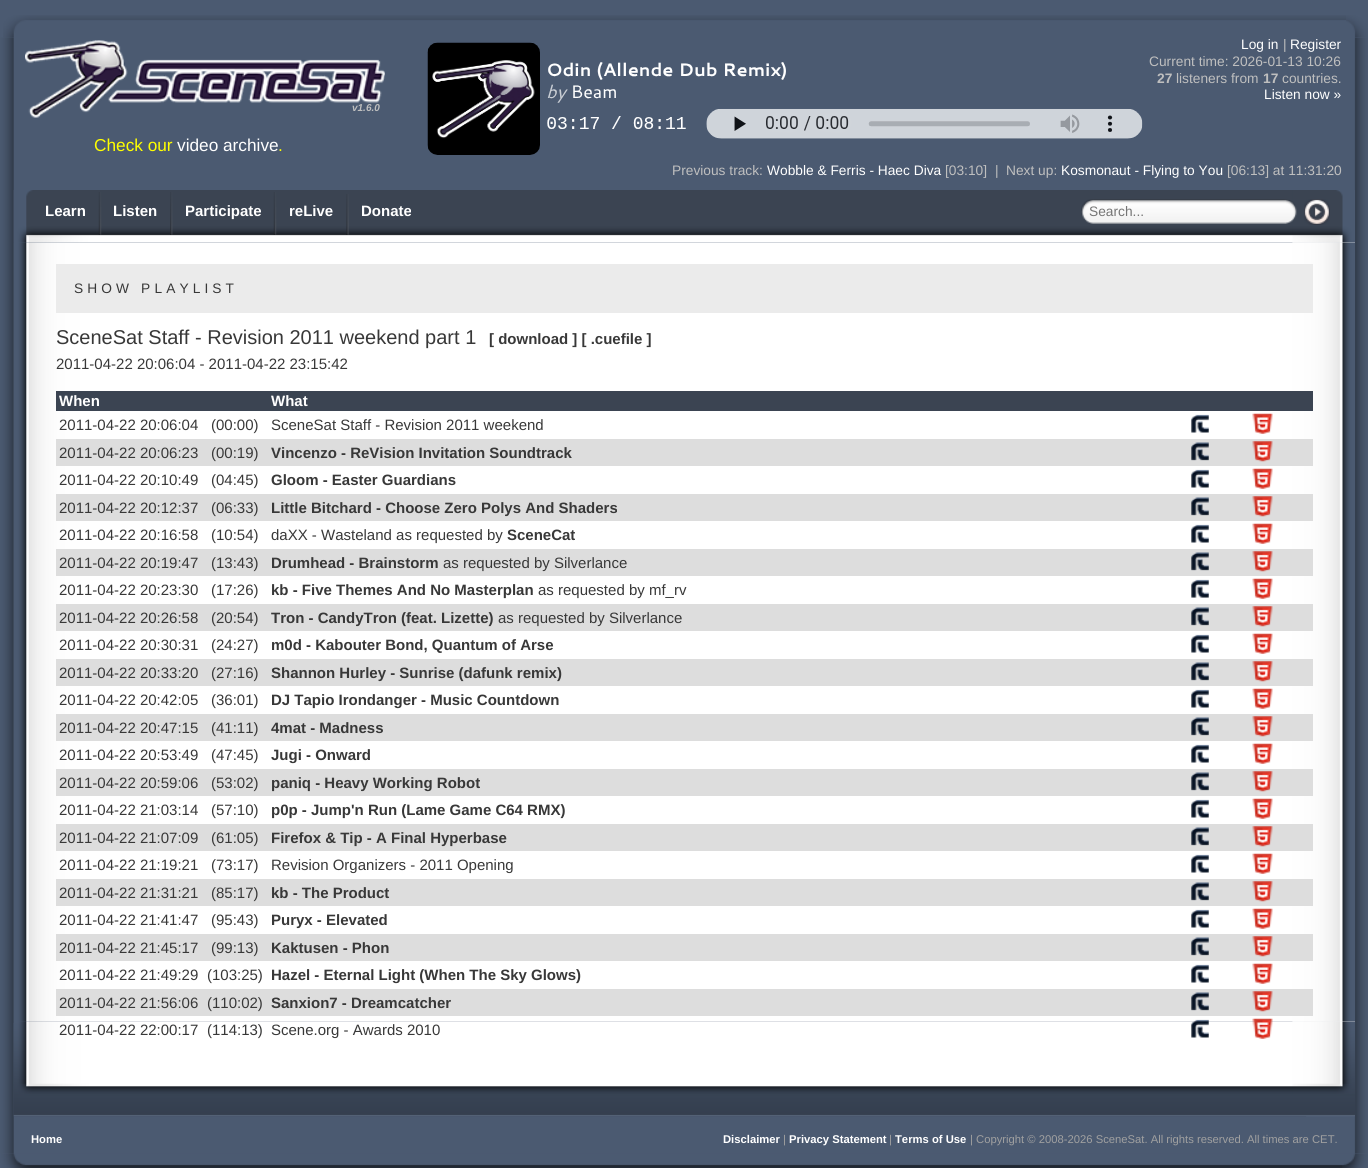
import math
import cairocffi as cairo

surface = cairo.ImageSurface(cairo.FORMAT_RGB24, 1368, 1168)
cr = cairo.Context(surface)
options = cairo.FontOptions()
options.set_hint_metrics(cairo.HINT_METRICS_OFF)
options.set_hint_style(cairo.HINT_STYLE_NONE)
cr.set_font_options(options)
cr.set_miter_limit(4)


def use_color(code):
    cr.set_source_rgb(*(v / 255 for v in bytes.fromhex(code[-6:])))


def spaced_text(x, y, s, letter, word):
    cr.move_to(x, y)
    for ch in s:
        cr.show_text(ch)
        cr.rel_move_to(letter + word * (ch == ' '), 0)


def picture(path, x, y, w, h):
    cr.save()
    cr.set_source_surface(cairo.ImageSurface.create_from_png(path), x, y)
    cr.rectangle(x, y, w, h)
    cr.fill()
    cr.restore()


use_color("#4b5a71")
cr.paint()
picture("img1.png", 3, 15, 1365, 23)
picture("img2.png", 1346, 15, 22, 23)
picture("img3.png", 0, 37, 1368, 1117)
picture("img7.png", 13, 1023, 1294, 94)
picture("img4.png", 1306, 37, 62, 1117)
picture("img5.png", 25, 40, 360, 78)
cr.select_font_face("Liberation Sans", cairo.FONT_SLANT_ITALIC, cairo.FONT_WEIGHT_BOLD)
cr.set_font_size(10)
use_color("#bfbfbf")
cr.move_to(352, 111)
cr.show_text("v1.6.0")
picture("img6.png", 427, 42, 716, 113)
cr.select_font_face("Liberation Sans")
cr.set_font_size(13.75)
use_color("#ffffff")
cr.move_to(1241, 49)
cr.show_text("Log in")
use_color("#bfbfbf")
cr.move_to(1283, 49)
cr.show_text("|")
use_color("#ffffff")
cr.move_to(1290, 49)
cr.show_text("Register")
use_color("#bfbfbf")
cr.move_to(1149, 66)
cr.show_text("Current time: 2026-01-13 10:26")
cr.select_font_face("Liberation Sans", cairo.FONT_SLANT_NORMAL, cairo.FONT_WEIGHT_BOLD)
cr.move_to(1157, 83)
cr.show_text("27")
cr.select_font_face("Liberation Sans")
cr.move_to(1176, 83)
cr.show_text("listeners from")
cr.select_font_face("Liberation Sans", cairo.FONT_SLANT_NORMAL, cairo.FONT_WEIGHT_BOLD)
cr.move_to(1263, 83)
cr.show_text("17")
cr.select_font_face("Liberation Sans")
cr.move_to(1282, 83)
cr.show_text("countries.")
use_color("#ffffff")
cr.move_to(1264, 99)
cr.show_text("Listen now »")
cr.set_font_size(17.25)
use_color("#ffff00")
cr.move_to(94, 151)
cr.show_text("Check our")
use_color("#ffffff")
cr.move_to(177, 151)
cr.show_text("video archive")
use_color("#ffff00")
cr.move_to(278, 151)
cr.show_text(".")
cr.set_font_size(13.75)
use_color("#bfbfbf")
cr.move_to(672, 175)
cr.show_text("Previous track:")
use_color("#ffffff")
cr.move_to(767, 175)
cr.show_text("Wobble & Ferris - Haec Diva")
use_color("#bfbfbf")
cr.move_to(945, 175)
cr.show_text("[03:10]")
cr.move_to(995, 175)
cr.show_text("|")
cr.move_to(1006, 175)
cr.show_text("Next up:")
use_color("#ffffff")
cr.move_to(1061, 175)
cr.show_text("Kosmonaut - Flying to You")
use_color("#bfbfbf")
cr.move_to(1227, 175)
cr.show_text("[06:13] at 11:31:20")
picture("img8.png", 13, 190, 1342, 53)
cr.select_font_face("Liberation Sans", cairo.FONT_SLANT_NORMAL, cairo.FONT_WEIGHT_BOLD)
cr.set_font_size(15)
use_color("#ffffff")
cr.move_to(45, 216)
cr.show_text("Learn")
picture("img9.png", 98, 192, 4, 43)
cr.move_to(113, 216)
cr.show_text("Listen")
picture("img10.png", 170, 192, 3, 43)
cr.move_to(185, 216)
cr.show_text("Participate")
picture("img9.png", 273, 192, 4, 43)
cr.move_to(289, 216)
cr.show_text("reLive")
picture("img11.png", 346, 194, 3, 41)
cr.move_to(361, 216)
cr.show_text("Donate")
picture("img14.png", 1292, 190, 63, 53)
picture("img12.png", 1081, 199, 216, 25)
cr.select_font_face("Liberation Sans")
cr.set_font_size(13.75)
use_color("#757575")
cr.move_to(1089, 216)
cr.show_text("Search...")
picture("img13.png", 1304, 199, 26, 26)
picture("img25.png", 13, 1021, 1342, 96)
picture("img26.png", 1292, 1021, 63, 73)
picture("img15.png", 13, 242, 1342, 780)
picture("img24.png", 1292, 242, 63, 780)
use_color("#ebebeb")
cr.rectangle(56, 264, 1257, 49)
cr.fill()
use_color("#383838")
spaced_text(74, 293, "SHOW PLAYLIST", 4.1, 0)
cr.set_font_size(20)
cr.move_to(56, 344)
cr.show_text("SceneSat Staff - Revision 2011 weekend part 1")
cr.select_font_face("Liberation Sans", cairo.FONT_SLANT_NORMAL, cairo.FONT_WEIGHT_BOLD)
cr.set_font_size(15)
cr.move_to(489, 344)
cr.show_text("[ download ] [ .cuefile ]")
cr.select_font_face("Liberation Sans")
cr.move_to(56, 369)
cr.show_text("2011-04-22 20:06:04 - 2011-04-22 23:15:42")
use_color("#3b4452")
cr.rectangle(56, 391, 1257, 20)
cr.fill()
cr.select_font_face("Liberation Sans", cairo.FONT_SLANT_NORMAL, cairo.FONT_WEIGHT_BOLD)
use_color("#ffffff")
cr.move_to(59, 406)
cr.show_text("When")
cr.move_to(271, 406)
cr.show_text("What")
cr.select_font_face("Liberation Sans")
use_color("#383838")
cr.move_to(59, 430)
cr.show_text("2011-04-22 20:06:04")
cr.move_to(211, 430)
cr.show_text("(00:00)")
cr.move_to(271, 430)
cr.show_text("SceneSat Staff - Revision 2011 weekend")
picture("img16.png", 1191, 414, 18, 19)
picture("img17.png", 1252, 413, 21, 21)
use_color("#dddddd")
cr.rectangle(56, 439, 1257, 27)
cr.fill()
use_color("#383838")
cr.move_to(59, 458)
cr.show_text("2011-04-22 20:06:23")
cr.move_to(211, 458)
cr.show_text("(00:19)")
cr.select_font_face("Liberation Sans", cairo.FONT_SLANT_NORMAL, cairo.FONT_WEIGHT_BOLD)
cr.move_to(271, 458)
cr.show_text("Vincenzo - ReVision Invitation Soundtrack")
picture("img18.png", 1191, 442, 18, 19)
picture("img19.png", 1252, 441, 21, 21)
cr.select_font_face("Liberation Sans")
cr.move_to(59, 485)
cr.show_text("2011-04-22 20:10:49")
cr.move_to(211, 485)
cr.show_text("(04:45)")
cr.select_font_face("Liberation Sans", cairo.FONT_SLANT_NORMAL, cairo.FONT_WEIGHT_BOLD)
cr.move_to(271, 485)
cr.show_text("Gloom - Easter Guardians")
picture("img16.png", 1191, 469, 18, 19)
picture("img17.png", 1252, 468, 21, 21)
use_color("#dddddd")
cr.rectangle(56, 494, 1257, 27)
cr.fill()
cr.select_font_face("Liberation Sans")
use_color("#383838")
cr.move_to(59, 513)
cr.show_text("2011-04-22 20:12:37")
cr.move_to(211, 513)
cr.show_text("(06:33)")
cr.select_font_face("Liberation Sans", cairo.FONT_SLANT_NORMAL, cairo.FONT_WEIGHT_BOLD)
cr.move_to(271, 513)
cr.show_text("Little Bitchard - Choose Zero Polys And Shaders")
picture("img18.png", 1191, 497, 18, 19)
picture("img19.png", 1252, 496, 21, 21)
cr.select_font_face("Liberation Sans")
cr.move_to(59, 540)
cr.show_text("2011-04-22 20:16:58")
cr.move_to(211, 540)
cr.show_text("(10:54)")
cr.move_to(271, 540)
cr.show_text("daXX - Wasteland as requested by")
cr.select_font_face("Liberation Sans", cairo.FONT_SLANT_NORMAL, cairo.FONT_WEIGHT_BOLD)
cr.move_to(507, 540)
cr.show_text("SceneCat")
picture("img16.png", 1191, 524, 18, 19)
picture("img17.png", 1252, 523, 21, 21)
use_color("#dddddd")
cr.rectangle(56, 549, 1257, 27)
cr.fill()
cr.select_font_face("Liberation Sans")
use_color("#383838")
cr.move_to(59, 568)
cr.show_text("2011-04-22 20:19:47")
cr.move_to(211, 568)
cr.show_text("(13:43)")
cr.select_font_face("Liberation Sans", cairo.FONT_SLANT_NORMAL, cairo.FONT_WEIGHT_BOLD)
cr.move_to(271, 568)
cr.show_text("Drumhead - Brainstorm")
cr.select_font_face("Liberation Sans")
cr.move_to(443, 568)
cr.show_text("as requested by Silverlance")
picture("img18.png", 1191, 552, 18, 19)
picture("img19.png", 1252, 551, 21, 21)
cr.move_to(59, 595)
cr.show_text("2011-04-22 20:23:30")
cr.move_to(211, 595)
cr.show_text("(17:26)")
cr.select_font_face("Liberation Sans", cairo.FONT_SLANT_NORMAL, cairo.FONT_WEIGHT_BOLD)
cr.move_to(271, 595)
cr.show_text("kb - Five Themes And No Masterplan")
cr.select_font_face("Liberation Sans")
cr.move_to(538, 595)
cr.show_text("as requested by mf_rv")
picture("img20.png", 1191, 579, 18, 19)
picture("img21.png", 1252, 578, 21, 21)
use_color("#dddddd")
cr.rectangle(56, 604, 1257, 27)
cr.fill()
use_color("#383838")
cr.move_to(59, 623)
cr.show_text("2011-04-22 20:26:58")
cr.move_to(211, 623)
cr.show_text("(20:54)")
cr.select_font_face("Liberation Sans", cairo.FONT_SLANT_NORMAL, cairo.FONT_WEIGHT_BOLD)
cr.move_to(271, 623)
cr.show_text("Tron - CandyTron (feat. Lizette)")
cr.select_font_face("Liberation Sans")
cr.move_to(498, 623)
cr.show_text("as requested by Silverlance")
picture("img18.png", 1191, 607, 18, 19)
picture("img19.png", 1252, 606, 21, 21)
cr.move_to(59, 650)
cr.show_text("2011-04-22 20:30:31")
cr.move_to(211, 650)
cr.show_text("(24:27)")
cr.select_font_face("Liberation Sans", cairo.FONT_SLANT_NORMAL, cairo.FONT_WEIGHT_BOLD)
cr.move_to(271, 650)
cr.show_text("m0d - Kabouter Bond, Quantum of Arse")
picture("img16.png", 1191, 634, 18, 19)
picture("img17.png", 1252, 633, 21, 21)
use_color("#dddddd")
cr.rectangle(56, 659, 1257, 27)
cr.fill()
cr.select_font_face("Liberation Sans")
use_color("#383838")
cr.move_to(59, 678)
cr.show_text("2011-04-22 20:33:20")
cr.move_to(211, 678)
cr.show_text("(27:16)")
cr.select_font_face("Liberation Sans", cairo.FONT_SLANT_NORMAL, cairo.FONT_WEIGHT_BOLD)
cr.move_to(271, 678)
cr.show_text("Shannon Hurley - Sunrise (dafunk remix)")
picture("img18.png", 1191, 662, 18, 19)
picture("img19.png", 1252, 661, 21, 21)
cr.select_font_face("Liberation Sans")
cr.move_to(59, 705)
cr.show_text("2011-04-22 20:42:05")
cr.move_to(211, 705)
cr.show_text("(36:01)")
cr.select_font_face("Liberation Sans", cairo.FONT_SLANT_NORMAL, cairo.FONT_WEIGHT_BOLD)
cr.move_to(271, 705)
cr.show_text("DJ Tapio Irondanger - Music Countdown")
picture("img16.png", 1191, 689, 18, 19)
picture("img17.png", 1252, 688, 21, 21)
use_color("#dddddd")
cr.rectangle(56, 714, 1257, 27)
cr.fill()
cr.select_font_face("Liberation Sans")
use_color("#383838")
cr.move_to(59, 733)
cr.show_text("2011-04-22 20:47:15")
cr.move_to(211, 733)
cr.show_text("(41:11)")
cr.select_font_face("Liberation Sans", cairo.FONT_SLANT_NORMAL, cairo.FONT_WEIGHT_BOLD)
cr.move_to(271, 733)
cr.show_text("4mat - Madness")
picture("img18.png", 1191, 717, 18, 19)
picture("img19.png", 1252, 716, 21, 21)
cr.select_font_face("Liberation Sans")
cr.move_to(59, 760)
cr.show_text("2011-04-22 20:53:49")
cr.move_to(211, 760)
cr.show_text("(47:45)")
cr.select_font_face("Liberation Sans", cairo.FONT_SLANT_NORMAL, cairo.FONT_WEIGHT_BOLD)
cr.move_to(271, 760)
cr.show_text("Jugi - Onward")
picture("img16.png", 1191, 744, 18, 19)
picture("img17.png", 1252, 743, 21, 21)
use_color("#dddddd")
cr.rectangle(56, 769, 1257, 27)
cr.fill()
cr.select_font_face("Liberation Sans")
use_color("#383838")
cr.move_to(59, 788)
cr.show_text("2011-04-22 20:59:06")
cr.move_to(211, 788)
cr.show_text("(53:02)")
cr.select_font_face("Liberation Sans", cairo.FONT_SLANT_NORMAL, cairo.FONT_WEIGHT_BOLD)
cr.move_to(271, 788)
cr.show_text("paniq - Heavy Working Robot")
picture("img18.png", 1191, 772, 18, 19)
picture("img19.png", 1252, 771, 21, 21)
cr.select_font_face("Liberation Sans")
cr.move_to(59, 815)
cr.show_text("2011-04-22 21:03:14")
cr.move_to(211, 815)
cr.show_text("(57:10)")
cr.select_font_face("Liberation Sans", cairo.FONT_SLANT_NORMAL, cairo.FONT_WEIGHT_BOLD)
cr.move_to(271, 815)
cr.show_text("p0p - Jump'n Run (Lame Game C64 RMX)")
picture("img16.png", 1191, 799, 18, 19)
picture("img17.png", 1252, 798, 21, 21)
use_color("#dddddd")
cr.rectangle(56, 824, 1257, 27)
cr.fill()
cr.select_font_face("Liberation Sans")
use_color("#383838")
cr.move_to(59, 843)
cr.show_text("2011-04-22 21:07:09")
cr.move_to(211, 843)
cr.show_text("(61:05)")
cr.select_font_face("Liberation Sans", cairo.FONT_SLANT_NORMAL, cairo.FONT_WEIGHT_BOLD)
cr.move_to(271, 843)
cr.show_text("Firefox & Tip - A Final Hyperbase")
picture("img18.png", 1191, 827, 18, 19)
picture("img19.png", 1252, 826, 21, 21)
cr.select_font_face("Liberation Sans")
cr.move_to(59, 870)
cr.show_text("2011-04-22 21:19:21")
cr.move_to(211, 870)
cr.show_text("(73:17)")
cr.move_to(271, 870)
cr.show_text("Revision Organizers - 2011 Opening")
picture("img16.png", 1191, 854, 18, 19)
picture("img17.png", 1252, 853, 21, 21)
use_color("#dddddd")
cr.rectangle(56, 879, 1257, 27)
cr.fill()
use_color("#383838")
cr.move_to(59, 898)
cr.show_text("2011-04-22 21:31:21")
cr.move_to(211, 898)
cr.show_text("(85:17)")
cr.select_font_face("Liberation Sans", cairo.FONT_SLANT_NORMAL, cairo.FONT_WEIGHT_BOLD)
cr.move_to(271, 898)
cr.show_text("kb - The Product")
picture("img18.png", 1191, 882, 18, 19)
picture("img19.png", 1252, 881, 21, 21)
cr.select_font_face("Liberation Sans")
cr.move_to(59, 925)
cr.show_text("2011-04-22 21:41:47")
cr.move_to(211, 925)
cr.show_text("(95:43)")
cr.select_font_face("Liberation Sans", cairo.FONT_SLANT_NORMAL, cairo.FONT_WEIGHT_BOLD)
cr.move_to(271, 925)
cr.show_text("Puryx - Elevated")
picture("img16.png", 1191, 909, 18, 19)
picture("img17.png", 1252, 908, 21, 21)
use_color("#dddddd")
cr.rectangle(56, 934, 1257, 27)
cr.fill()
cr.select_font_face("Liberation Sans")
use_color("#383838")
cr.move_to(59, 953)
cr.show_text("2011-04-22 21:45:17")
cr.move_to(211, 953)
cr.show_text("(99:13)")
cr.select_font_face("Liberation Sans", cairo.FONT_SLANT_NORMAL, cairo.FONT_WEIGHT_BOLD)
cr.move_to(271, 953)
cr.show_text("Kaktusen - Phon")
picture("img18.png", 1191, 937, 18, 19)
picture("img19.png", 1252, 936, 21, 21)
cr.select_font_face("Liberation Sans")
cr.move_to(59, 980)
cr.show_text("2011-04-22 21:49:29")
cr.move_to(207, 980)
cr.show_text("(103:25)")
cr.select_font_face("Liberation Sans", cairo.FONT_SLANT_NORMAL, cairo.FONT_WEIGHT_BOLD)
cr.move_to(271, 980)
cr.show_text("Hazel - Eternal Light (When The Sky Glows)")
picture("img16.png", 1191, 964, 18, 19)
picture("img17.png", 1252, 963, 21, 21)
use_color("#dddddd")
cr.rectangle(56, 989, 1257, 27)
cr.fill()
cr.select_font_face("Liberation Sans")
use_color("#383838")
cr.move_to(59, 1008)
cr.show_text("2011-04-22 21:56:06")
cr.move_to(207, 1008)
cr.show_text("(110:02)")
cr.select_font_face("Liberation Sans", cairo.FONT_SLANT_NORMAL, cairo.FONT_WEIGHT_BOLD)
cr.move_to(271, 1008)
cr.show_text("Sanxion7 - Dreamcatcher")
picture("img18.png", 1191, 992, 18, 19)
picture("img19.png", 1252, 991, 21, 21)
cr.select_font_face("Liberation Sans")
cr.move_to(59, 1035)
cr.show_text("2011-04-22 22:00:17")
cr.move_to(207, 1035)
cr.show_text("(114:13)")
cr.move_to(271, 1035)
cr.show_text("Scene.org - Awards 2010")
picture("img22.png", 1191, 1019, 18, 19)
picture("img23.png", 1252, 1018, 21, 21)
picture("img27.png", 0, 1153, 1368, 15)
cr.select_font_face("Liberation Sans", cairo.FONT_SLANT_NORMAL, cairo.FONT_WEIGHT_BOLD)
cr.set_font_size(11.25)
use_color("#ffffff")
cr.move_to(31, 1143)
cr.show_text("Home")
cr.move_to(723, 1143)
cr.show_text("Disclaimer")
cr.select_font_face("Liberation Sans")
use_color("#a0a0a0")
cr.move_to(783, 1143)
cr.show_text("|")
cr.select_font_face("Liberation Sans", cairo.FONT_SLANT_NORMAL, cairo.FONT_WEIGHT_BOLD)
use_color("#ffffff")
cr.move_to(789, 1143)
cr.show_text("Privacy Statement")
cr.select_font_face("Liberation Sans")
use_color("#a0a0a0")
cr.move_to(889, 1143)
cr.show_text("|")
cr.select_font_face("Liberation Sans", cairo.FONT_SLANT_NORMAL, cairo.FONT_WEIGHT_BOLD)
use_color("#ffffff")
cr.move_to(895, 1143)
cr.show_text("Terms of Use")
cr.select_font_face("Liberation Sans")
use_color("#a0a0a0")
cr.move_to(970, 1143)
cr.show_text("| Copyright © 2008-2026 SceneSat. All rights reserved. All times are CET.")
picture("img28.png", 1342, 1153, 26, 15)
surface.write_to_png("result.png")
